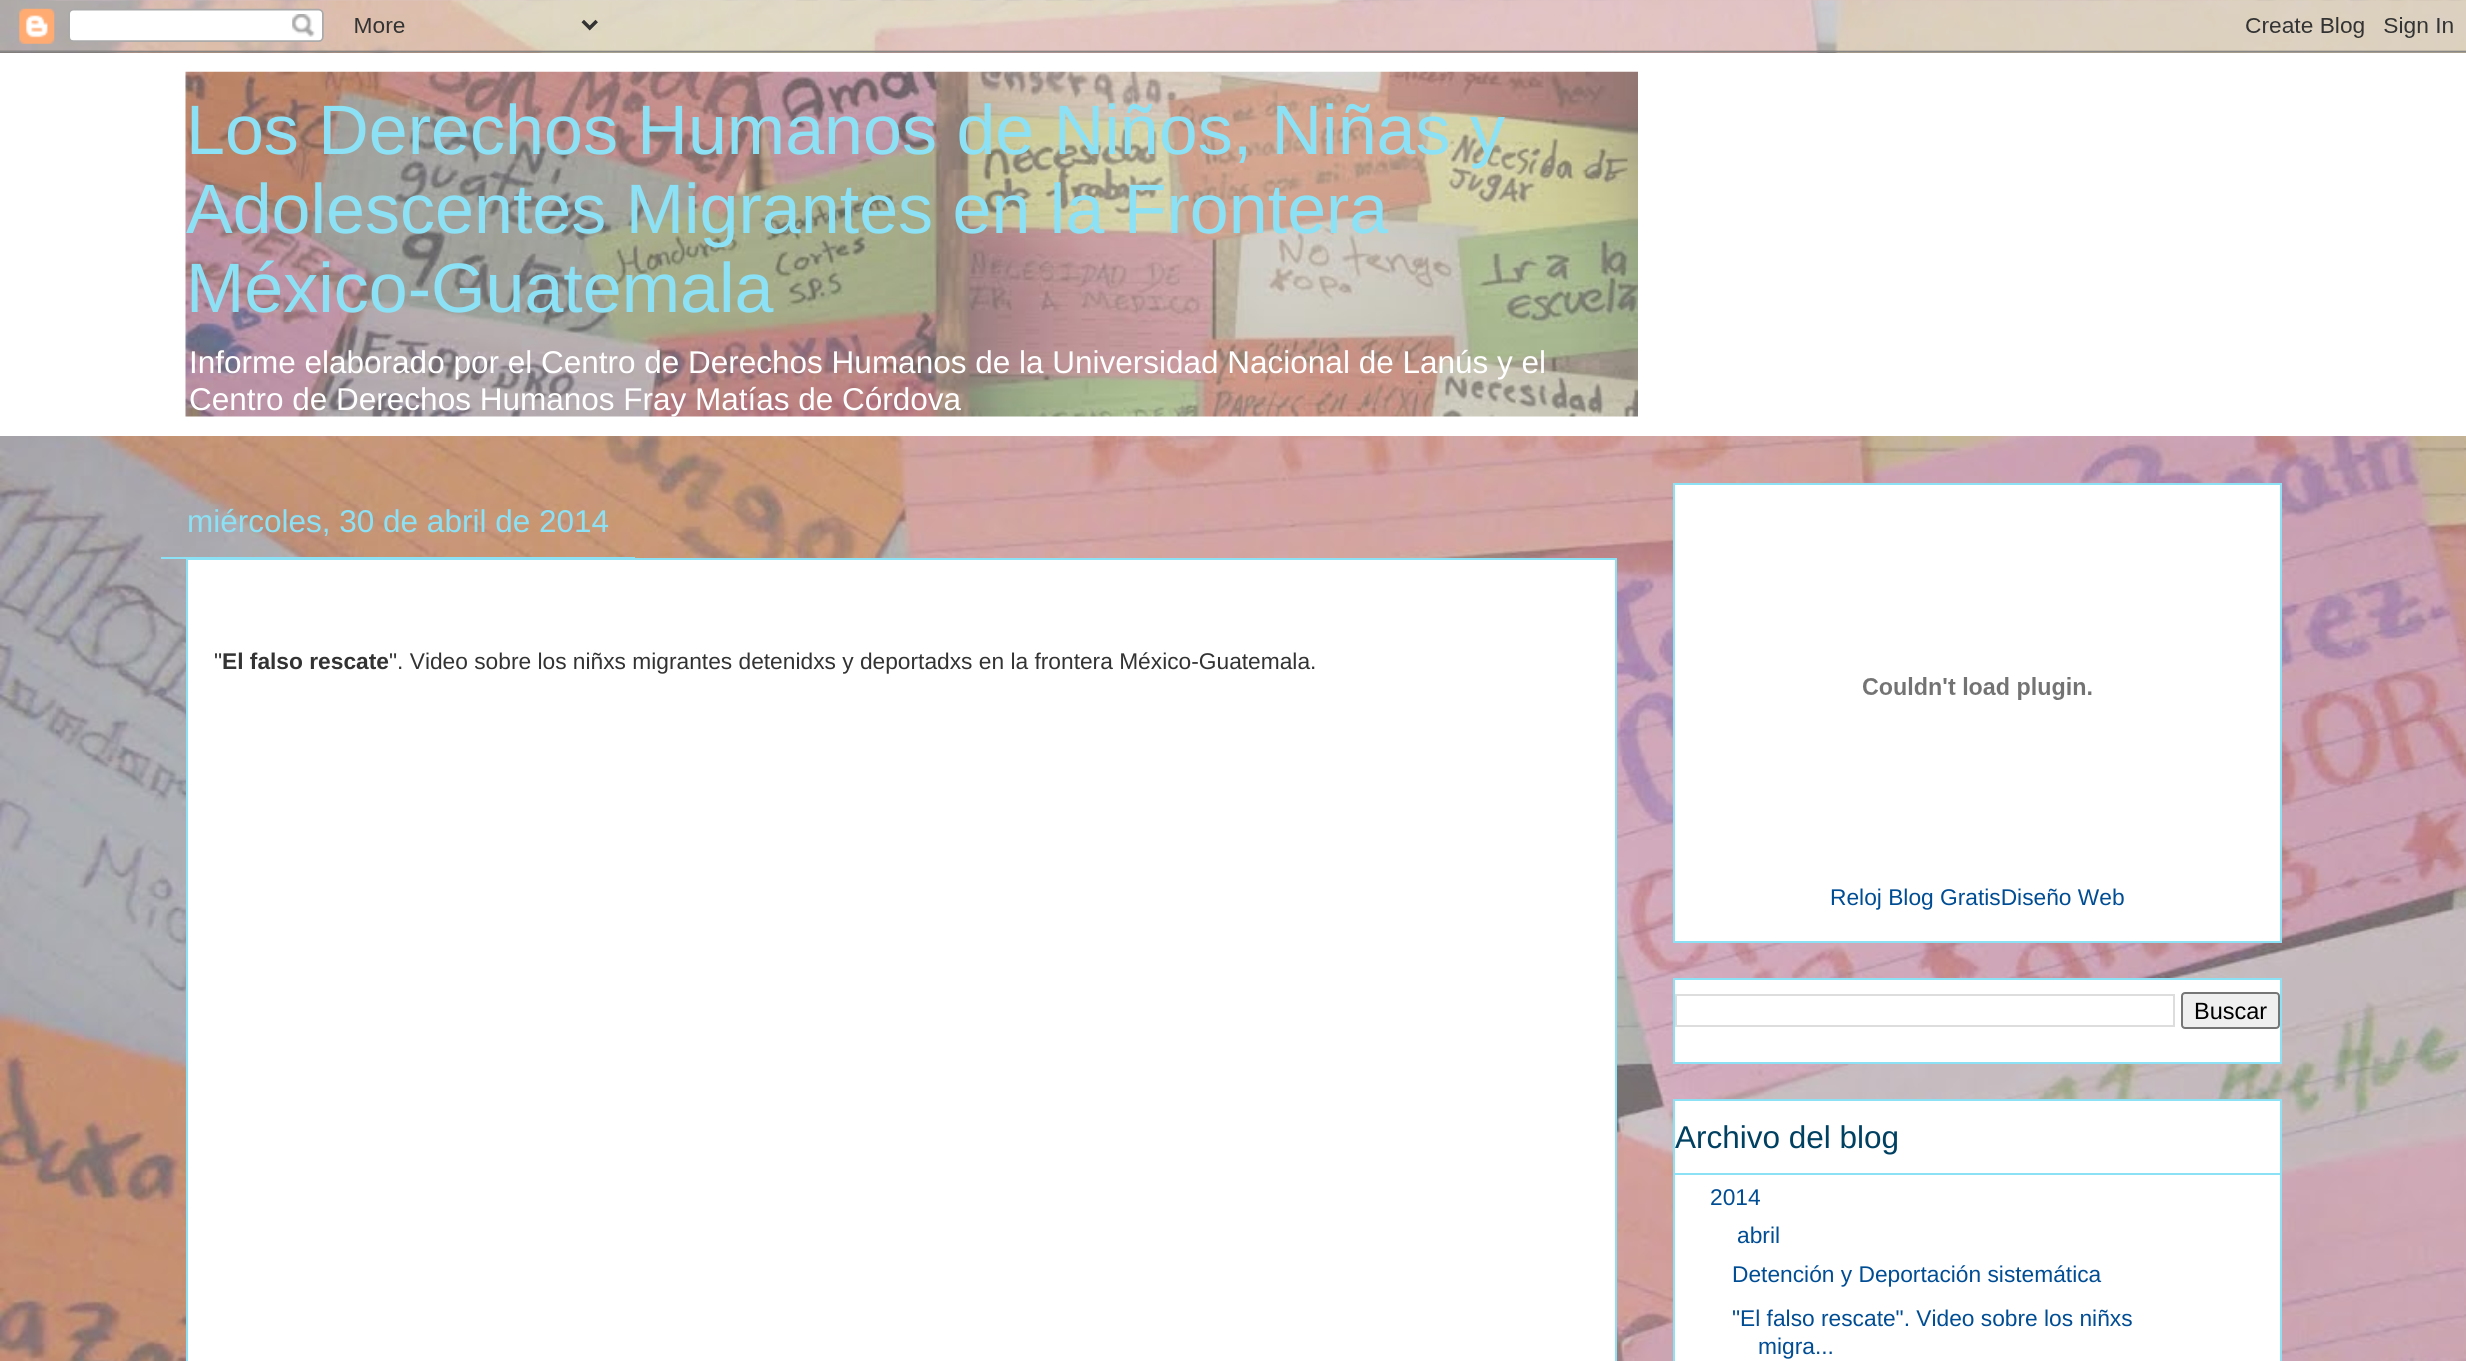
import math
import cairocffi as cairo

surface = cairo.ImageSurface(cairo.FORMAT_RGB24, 2466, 1361)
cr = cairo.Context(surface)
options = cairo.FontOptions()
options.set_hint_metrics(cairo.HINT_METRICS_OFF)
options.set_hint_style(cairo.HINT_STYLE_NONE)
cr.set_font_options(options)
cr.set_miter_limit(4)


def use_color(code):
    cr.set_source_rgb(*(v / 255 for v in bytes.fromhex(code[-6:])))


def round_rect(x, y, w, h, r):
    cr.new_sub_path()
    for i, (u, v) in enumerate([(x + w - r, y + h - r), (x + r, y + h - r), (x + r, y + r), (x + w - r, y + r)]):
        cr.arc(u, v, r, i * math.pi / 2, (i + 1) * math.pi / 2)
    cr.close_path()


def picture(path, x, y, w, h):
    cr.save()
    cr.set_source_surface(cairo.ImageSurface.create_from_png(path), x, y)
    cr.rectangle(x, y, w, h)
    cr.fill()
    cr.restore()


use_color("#ffffff")
cr.paint()
picture("img1.png", 0, 0, 2466, 1361)
picture("img2.png", 0, 0, 2466, 53)
use_color("#ffffff")
cr.rectangle(0, 53, 2466, 383)
cr.fill()
picture("img3.png", 185, 71, 1453, 346)
cr.select_font_face("Liberation Sans")
cr.set_font_size(70)
use_color("#8ce1f5")
cr.move_to(186, 154)
cr.show_text("Los Derechos Humanos de Niños, Niñas y")
cr.move_to(186, 233)
cr.show_text("Adolescentes Migrantes en la Frontera")
cr.move_to(186, 312)
cr.show_text("México-Guatemala")
cr.set_font_size(31.5)
use_color("#ffffff")
cr.move_to(189, 373)
cr.show_text("Informe elaborado por el Centro de Derechos Humanos de la Universidad Nacional de Lanús y el")
cr.move_to(189, 410)
cr.show_text("Centro de Derechos Humanos Fray Matías de Córdova")
cr.rectangle(187, 559, 1429, 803)
cr.fill_preserve()
use_color("#8ce1f5")
cr.stroke()
cr.rectangle(161, 557, 474, 2)
cr.fill()
cr.move_to(187, 532)
cr.show_text("miércoles, 30 de abril de 2014")
cr.set_font_size(22.75)
use_color("#333333")
cr.move_to(214, 669)
cr.show_text("\"")
cr.select_font_face("Liberation Sans", cairo.FONT_SLANT_NORMAL, cairo.FONT_WEIGHT_BOLD)
cr.move_to(222, 669)
cr.show_text("El falso rescate")
cr.select_font_face("Liberation Sans")
cr.move_to(389, 669)
cr.show_text("\". Video sobre los niñxs migrantes detenidxs y deportadxs en la frontera México-Guatemala.")
use_color("#ffffff")
cr.rectangle(1674, 484, 607, 458)
cr.fill_preserve()
use_color("#8ce1f5")
cr.stroke()
picture("img4.png", 1863, 677, 229, 23)
use_color("#004d94")
cr.move_to(1830, 905)
cr.show_text("Reloj Blog GratisDiseño Web")
use_color("#ffffff")
cr.rectangle(1674, 979, 607, 84)
cr.fill_preserve()
use_color("#8ce1f5")
cr.stroke()
cr.rectangle(1676, 995, 498, 31)
use_color("#dddddd")
cr.stroke()
use_color("#efefef")
round_rect(2182, 993, 97, 35, 3)
cr.fill_preserve()
use_color("#767676")
cr.stroke()
cr.set_font_size(23.5)
use_color("#000000")
cr.move_to(2194, 1019)
cr.show_text("Buscar")
use_color("#ffffff")
cr.rectangle(1674, 1100, 607, 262)
cr.fill_preserve()
use_color("#8ce1f5")
cr.stroke()
cr.rectangle(1675, 1173, 605, 2)
cr.fill()
cr.set_font_size(31.5)
use_color("#004061")
cr.move_to(1675, 1148)
cr.show_text("Archivo del blog")
cr.set_font_size(22.75)
use_color("#004d94")
cr.move_to(1710, 1205)
cr.show_text("2014")
cr.move_to(1737, 1243)
cr.show_text("abril")
cr.move_to(1732, 1282)
cr.show_text("Detención y Deportación sistemática")
cr.move_to(1732, 1326)
cr.show_text("\"El falso rescate\". Video sobre los niñxs")
cr.move_to(1758, 1354)
cr.show_text("migra...")
surface.write_to_png("result.png")
